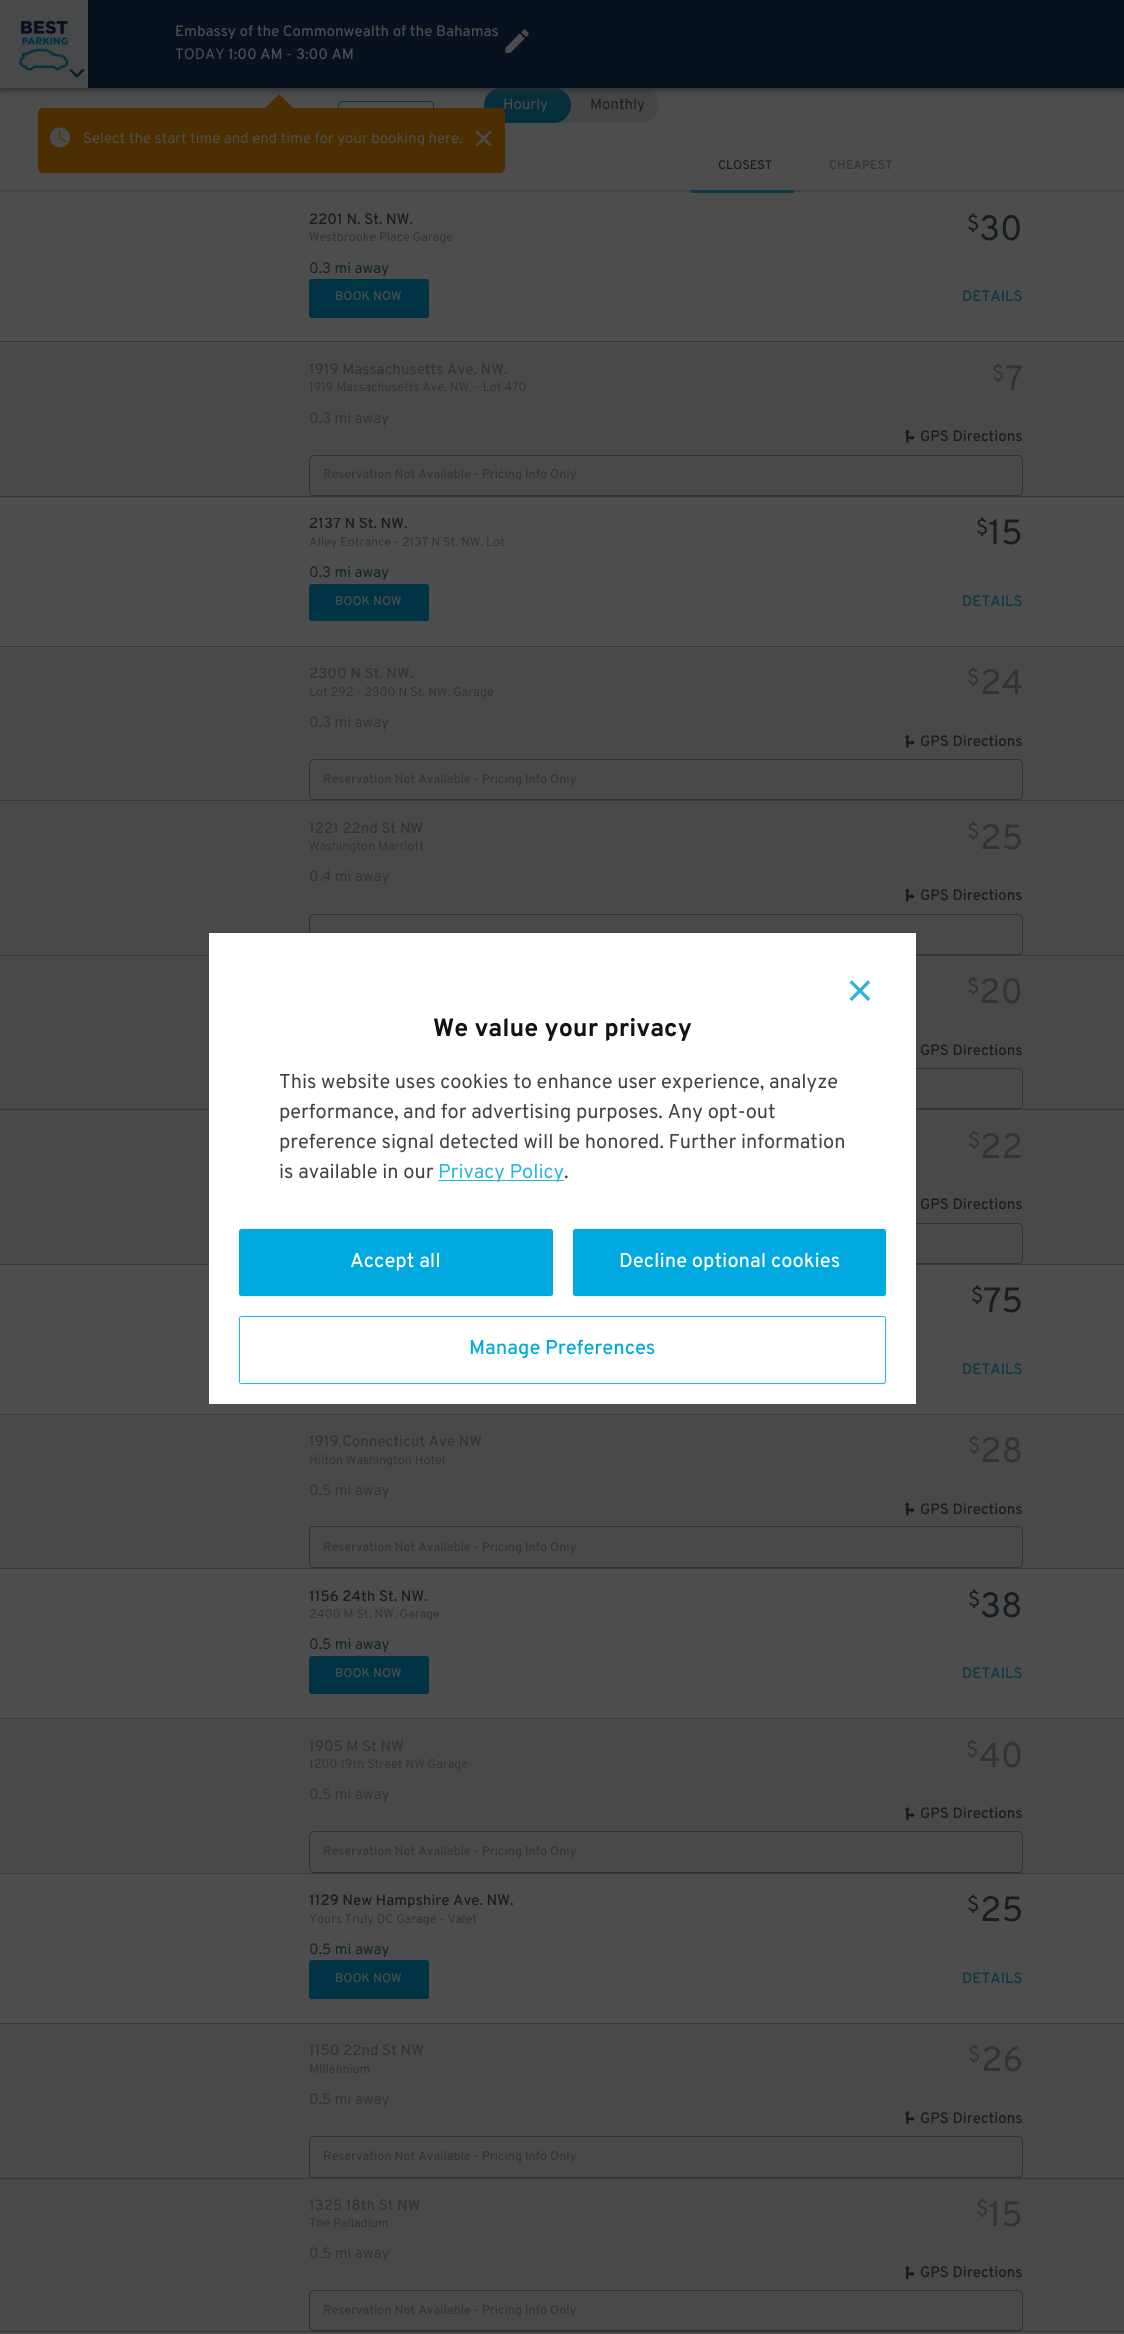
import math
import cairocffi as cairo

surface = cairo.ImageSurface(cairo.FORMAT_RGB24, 1124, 2334)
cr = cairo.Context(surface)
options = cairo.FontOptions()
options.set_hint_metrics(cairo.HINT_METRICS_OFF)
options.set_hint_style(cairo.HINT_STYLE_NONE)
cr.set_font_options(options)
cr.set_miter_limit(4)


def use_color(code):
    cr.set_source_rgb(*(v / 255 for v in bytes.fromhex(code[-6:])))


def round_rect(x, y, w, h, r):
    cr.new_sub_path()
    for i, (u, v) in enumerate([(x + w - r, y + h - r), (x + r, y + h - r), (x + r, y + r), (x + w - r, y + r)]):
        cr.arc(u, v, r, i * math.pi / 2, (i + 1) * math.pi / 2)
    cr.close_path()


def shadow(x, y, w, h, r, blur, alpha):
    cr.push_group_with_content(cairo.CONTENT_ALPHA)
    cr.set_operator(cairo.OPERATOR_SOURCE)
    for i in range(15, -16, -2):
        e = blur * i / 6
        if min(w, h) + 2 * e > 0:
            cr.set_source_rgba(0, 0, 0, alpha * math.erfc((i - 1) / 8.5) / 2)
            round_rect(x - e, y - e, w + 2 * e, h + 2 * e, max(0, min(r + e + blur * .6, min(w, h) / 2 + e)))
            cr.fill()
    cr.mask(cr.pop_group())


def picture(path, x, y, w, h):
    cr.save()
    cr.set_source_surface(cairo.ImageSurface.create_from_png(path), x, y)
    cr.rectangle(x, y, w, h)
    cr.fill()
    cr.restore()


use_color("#4d4d4d")
cr.paint()
round_rect(338.5, 101.5, 95, 26, 3.5)
use_color("#0d3743")
cr.set_line_width(1)
cr.stroke()
use_color("#454747")
round_rect(484, 88, 175, 35, 17.5)
cr.fill()
use_color("#042f3b")
round_rect(484, 88, 87, 35, 17.5)
cr.fill()
cr.select_font_face("Overpass")
cr.set_font_size(15)
use_color("#4d4d4d")
cr.move_to(503, 109)
cr.show_text("Hourly")
use_color("#4d2e00")
round_rect(38, 108, 467, 65, 5)
cr.fill()
cr.new_path()
cr.move_to(294, 109)
cr.line_to(264, 109)
cr.line_to(279, 94)
cr.close_path()
cr.fill()
use_color("#282c2f")
shadow(0, 3, 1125, 87, 0, 4, 1)
use_color("#08111e")
cr.rectangle(88, 0, 1036, 88)
cr.fill()
use_color("#47494a")
cr.rectangle(0, 0, 88, 88)
cr.fill()
picture("img1.png", 19, 20, 50, 51)
picture("img2.png", 69, 68, 16, 10)
cr.select_font_face("Overpass Medium")
use_color("#4d4d4d")
cr.move_to(175, 36)
cr.show_text("Embassy of the Commonwealth of the Bahamas")
cr.select_font_face("Overpass")
cr.move_to(175, 59)
cr.show_text("TODAY")
cr.select_font_face("Overpass Medium")
cr.move_to(228, 59)
cr.show_text("1:00 AM")
cr.select_font_face("Overpass")
cr.move_to(286, 59)
cr.show_text("-")
cr.select_font_face("Overpass Medium")
cr.move_to(296, 59)
cr.show_text("3:00 AM")
picture("img3.png", 505, 29, 24, 24)
picture("img4.png", 50, 127, 20, 21)
cr.select_font_face("Overpass")
cr.move_to(83, 143)
cr.show_text("Select the start time and end time for your booking here.")
picture("img5.png", 475, 130, 17, 17)
use_color("#1e1e1e")
cr.move_to(590, 109)
cr.show_text("Monthly")
use_color("#464545")
cr.rectangle(0, 191, 1124, 1)
cr.fill()
use_color("#434343")
cr.rectangle(0, 190, 1124, 1)
cr.fill()
cr.select_font_face("Overpass Medium")
cr.set_font_size(12.5)
use_color("#171d20")
cr.move_to(718, 169)
cr.show_text("CLOSEST")
use_color("#323336")
cr.move_to(829, 169)
cr.show_text("CHEAPEST")
use_color("#0e3946")
cr.rectangle(691, 190, 103, 3)
cr.fill()
use_color("#383838")
cr.rectangle(0, 341, 1124, 1)
cr.fill()
cr.set_font_size(15)
use_color("#171d20")
cr.move_to(309, 224)
cr.show_text("2201 N. St. NW.")
cr.select_font_face("Overpass")
cr.set_font_size(12.5)
use_color("#323336")
cr.move_to(309, 241)
cr.show_text("Westbrooke Place Garage")
cr.set_font_size(15)
use_color("#152427")
cr.move_to(309, 273)
cr.show_text("0.3 mi away")
cr.set_font_size(21)
use_color("#171d20")
cr.move_to(967, 230)
cr.show_text("$")
cr.set_font_size(35)
cr.move_to(979, 240)
cr.show_text("30")
use_color("#003343")
round_rect(309, 279, 120, 39, 2.5)
cr.fill()
cr.select_font_face("Overpass Medium")
cr.set_font_size(12.5)
use_color("#4d4d4d")
cr.move_to(335, 300)
cr.show_text("BOOK NOW")
cr.set_font_size(15)
use_color("#0d3743")
cr.move_to(962, 301)
cr.show_text("DETAILS")
use_color("#494948")
cr.rectangle(0, 343, 1124, 155)
cr.fill()
use_color("#383838")
cr.rectangle(0, 496, 1124, 1)
cr.fill()
use_color("#323336")
cr.move_to(309, 374)
cr.show_text("1919 Massachusetts Ave. NW.")
cr.select_font_face("Overpass")
cr.set_font_size(12.5)
cr.move_to(309, 391)
cr.show_text("1919 Massachusetts Ave. NW. - Lot 470")
cr.set_font_size(15)
cr.move_to(309, 423)
cr.show_text("0.3 mi away")
cr.set_font_size(21)
cr.move_to(992, 380)
cr.show_text("$")
cr.set_font_size(35)
cr.move_to(1005, 390)
cr.show_text("7")
picture("img6.png", 904, 429, 11, 14)
cr.select_font_face("Overpass Medium")
cr.set_font_size(15)
use_color("#171d20")
cr.move_to(920, 441)
cr.show_text("GPS Directions")
round_rect(309.5, 455.5, 713, 40, 4.5)
use_color("#313131")
cr.stroke()
cr.set_font_size(12.5)
use_color("#323336")
cr.move_to(323, 478)
cr.show_text("Reservation Not Available - Pricing Info Only")
use_color("#383838")
cr.rectangle(0, 646, 1124, 1)
cr.fill()
cr.save()
cr.rectangle(309, 518, 464, 15)
cr.clip()
cr.set_font_size(15)
use_color("#171d20")
cr.move_to(309, 528)
cr.show_text("2137 N St. NW.")
cr.restore()
cr.select_font_face("Overpass")
use_color("#323336")
cr.move_to(309, 546)
cr.show_text("Alley Entrance - 2137 N St. NW. Lot")
cr.set_font_size(15)
use_color("#152427")
cr.move_to(309, 577)
cr.show_text("0.3 mi away")
cr.set_font_size(21)
use_color("#171d20")
cr.move_to(976, 534)
cr.show_text("$")
cr.set_font_size(35)
cr.move_to(988, 544)
cr.show_text("15")
use_color("#003343")
round_rect(309, 584, 120, 37, 2.5)
cr.fill()
cr.select_font_face("Overpass Medium")
cr.set_font_size(12.5)
use_color("#4d4d4d")
cr.move_to(335, 605)
cr.show_text("BOOK NOW")
cr.set_font_size(15)
use_color("#0d3743")
cr.move_to(962, 606)
cr.show_text("DETAILS")
use_color("#494948")
cr.rectangle(0, 648, 1124, 152)
cr.fill()
use_color("#383838")
cr.rectangle(0, 800, 1124, 1)
cr.fill()
cr.save()
cr.rectangle(309, 668, 464, 15)
cr.clip()
use_color("#323336")
cr.move_to(309, 678)
cr.show_text("2300 N St. NW.")
cr.restore()
cr.select_font_face("Overpass")
cr.set_font_size(12.5)
use_color("#323336")
cr.move_to(309, 696)
cr.show_text("Lot 292 - 2300 N St. NW. Garage")
cr.set_font_size(15)
cr.move_to(309, 727)
cr.show_text("0.3 mi away")
cr.set_font_size(21)
cr.move_to(967, 684)
cr.show_text("$")
cr.set_font_size(35)
cr.move_to(980, 694)
cr.show_text("24")
picture("img6.png", 904, 734, 11, 14)
cr.select_font_face("Overpass Medium")
cr.set_font_size(15)
use_color("#171d20")
cr.move_to(920, 746)
cr.show_text("GPS Directions")
round_rect(309.5, 759.5, 713, 40, 4.5)
use_color("#313131")
cr.stroke()
cr.set_font_size(12.5)
use_color("#323336")
cr.move_to(323, 783)
cr.show_text("Reservation Not Available - Pricing Info Only")
use_color("#494948")
cr.rectangle(0, 801, 1124, 154)
cr.fill()
use_color("#383838")
cr.rectangle(0, 955, 1124, 1)
cr.fill()
cr.set_font_size(15)
use_color("#323336")
cr.move_to(309, 833)
cr.show_text("1221 22nd St NW")
cr.select_font_face("Overpass")
cr.set_font_size(12.5)
cr.move_to(309, 850)
cr.show_text("Washington Marriott")
cr.set_font_size(15)
cr.move_to(309, 881)
cr.show_text("0.4 mi away")
cr.set_font_size(21)
cr.move_to(967, 838)
cr.show_text("$")
cr.set_font_size(35)
cr.move_to(980, 849)
cr.show_text("25")
picture("img7.png", 904, 888, 11, 14)
cr.select_font_face("Overpass Medium")
cr.set_font_size(15)
use_color("#171d20")
cr.move_to(920, 900)
cr.show_text("GPS Directions")
round_rect(309.5, 914.5, 713, 40, 4.5)
use_color("#313131")
cr.stroke()
use_color("#494948")
cr.rectangle(0, 956, 1124, 153)
cr.fill()
use_color("#383838")
cr.rectangle(0, 1109, 1124, 1)
cr.fill()
cr.select_font_face("Overpass")
cr.set_font_size(21)
use_color("#323336")
cr.move_to(967, 993)
cr.show_text("$")
cr.set_font_size(35)
cr.move_to(979, 1003)
cr.show_text("20")
cr.select_font_face("Overpass Medium")
cr.set_font_size(15)
use_color("#171d20")
cr.move_to(920, 1055)
cr.show_text("GPS Directions")
round_rect(309.5, 1068.5, 713, 40, 4.5)
use_color("#313131")
cr.stroke()
use_color("#494948")
cr.rectangle(0, 1110, 1124, 154)
cr.fill()
use_color("#383838")
cr.rectangle(0, 1264, 1124, 1)
cr.fill()
cr.select_font_face("Overpass")
cr.set_font_size(21)
use_color("#323336")
cr.move_to(968, 1147)
cr.show_text("$")
cr.set_font_size(35)
cr.move_to(980, 1158)
cr.show_text("22")
cr.select_font_face("Overpass Medium")
cr.set_font_size(15)
use_color("#171d20")
cr.move_to(920, 1209)
cr.show_text("GPS Directions")
round_rect(309.5, 1223.5, 713, 40, 4.5)
use_color("#313131")
cr.stroke()
use_color("#383838")
cr.rectangle(0, 1414, 1124, 1)
cr.fill()
cr.select_font_face("Overpass")
cr.set_font_size(21)
use_color("#171d20")
cr.move_to(971, 1302)
cr.show_text("$")
cr.set_font_size(35)
cr.move_to(983, 1312)
cr.show_text("75")
cr.select_font_face("Overpass Medium")
cr.set_font_size(15)
use_color("#0d3743")
cr.move_to(962, 1374)
cr.show_text("DETAILS")
use_color("#494948")
cr.rectangle(0, 1415, 1124, 153)
cr.fill()
use_color("#383838")
cr.rectangle(0, 1568, 1124, 1)
cr.fill()
use_color("#323336")
cr.move_to(309, 1446)
cr.show_text("1919 Connecticut Ave NW")
cr.select_font_face("Overpass")
cr.set_font_size(12.5)
cr.move_to(309, 1464)
cr.show_text("Hilton Washington Hotel")
cr.set_font_size(15)
cr.move_to(309, 1495)
cr.show_text("0.5 mi away")
cr.set_font_size(21)
cr.move_to(968, 1452)
cr.show_text("$")
cr.set_font_size(35)
cr.move_to(980, 1462)
cr.show_text("28")
picture("img8.png", 904, 1502, 11, 14)
cr.select_font_face("Overpass Medium")
cr.set_font_size(15)
use_color("#171d20")
cr.move_to(920, 1514)
cr.show_text("GPS Directions")
round_rect(309.5, 1526.5, 713, 41, 4.5)
use_color("#313131")
cr.stroke()
cr.set_font_size(12.5)
use_color("#323336")
cr.move_to(323, 1551)
cr.show_text("Reservation Not Available - Pricing Info Only")
use_color("#383838")
cr.rectangle(0, 1718, 1124, 1)
cr.fill()
cr.set_font_size(15)
use_color("#171d20")
cr.move_to(309, 1601)
cr.show_text("1156 24th St. NW.")
cr.select_font_face("Overpass")
cr.set_font_size(12.5)
use_color("#323336")
cr.move_to(309, 1618)
cr.show_text("2400 M St. NW. Garage")
cr.set_font_size(15)
use_color("#152427")
cr.move_to(309, 1649)
cr.show_text("0.5 mi away")
cr.set_font_size(21)
use_color("#171d20")
cr.move_to(968, 1606)
cr.show_text("$")
cr.set_font_size(35)
cr.move_to(980, 1617)
cr.show_text("38")
use_color("#003343")
round_rect(309, 1656, 120, 38, 2.5)
cr.fill()
cr.select_font_face("Overpass Medium")
cr.set_font_size(12.5)
use_color("#4d4d4d")
cr.move_to(335, 1677)
cr.show_text("BOOK NOW")
cr.set_font_size(15)
use_color("#0d3743")
cr.move_to(962, 1678)
cr.show_text("DETAILS")
use_color("#494948")
cr.rectangle(0, 1719, 1124, 154)
cr.fill()
use_color("#383838")
cr.rectangle(0, 1873, 1124, 1)
cr.fill()
use_color("#323336")
cr.move_to(309, 1751)
cr.show_text("1905 M St NW")
cr.select_font_face("Overpass")
cr.set_font_size(12.5)
cr.move_to(309, 1768)
cr.show_text("1200 19th Street NW Garage")
cr.set_font_size(15)
cr.move_to(309, 1799)
cr.show_text("0.5 mi away")
cr.set_font_size(21)
cr.move_to(966, 1756)
cr.show_text("$")
cr.set_font_size(35)
cr.move_to(979, 1767)
cr.show_text("40")
picture("img8.png", 904, 1807, 11, 14)
cr.select_font_face("Overpass Medium")
cr.set_font_size(15)
use_color("#171d20")
cr.move_to(920, 1818)
cr.show_text("GPS Directions")
round_rect(309.5, 1831.5, 713, 41, 4.5)
use_color("#313131")
cr.stroke()
cr.set_font_size(12.5)
use_color("#323336")
cr.move_to(323, 1855)
cr.show_text("Reservation Not Available - Pricing Info Only")
use_color("#383838")
cr.rectangle(0, 2023, 1124, 1)
cr.fill()
cr.set_font_size(15)
use_color("#171d20")
cr.move_to(309, 1905)
cr.show_text("1129 New Hampshire Ave. NW.")
cr.select_font_face("Overpass")
cr.set_font_size(12.5)
use_color("#323336")
cr.move_to(309, 1923)
cr.show_text("Yours Truly DC Garage - Valet")
cr.set_font_size(15)
use_color("#152427")
cr.move_to(309, 1954)
cr.show_text("0.5 mi away")
cr.set_font_size(21)
use_color("#171d20")
cr.move_to(967, 1911)
cr.show_text("$")
cr.set_font_size(35)
cr.move_to(980, 1921)
cr.show_text("25")
use_color("#003343")
round_rect(309, 1960, 120, 39, 2.5)
cr.fill()
cr.select_font_face("Overpass Medium")
cr.set_font_size(12.5)
use_color("#4d4d4d")
cr.move_to(335, 1982)
cr.show_text("BOOK NOW")
cr.set_font_size(15)
use_color("#0d3743")
cr.move_to(962, 1983)
cr.show_text("DETAILS")
use_color("#494948")
cr.rectangle(0, 2024, 1124, 154)
cr.fill()
use_color("#383838")
cr.rectangle(0, 2178, 1124, 1)
cr.fill()
use_color("#323336")
cr.move_to(309, 2055)
cr.show_text("1150 22nd St NW")
cr.select_font_face("Overpass")
cr.set_font_size(12.5)
cr.move_to(309, 2073)
cr.show_text("Millennium")
cr.set_font_size(15)
cr.move_to(309, 2104)
cr.show_text("0.5 mi away")
cr.set_font_size(21)
cr.move_to(968, 2061)
cr.show_text("$")
cr.set_font_size(35)
cr.move_to(981, 2071)
cr.show_text("26")
picture("img9.png", 904, 2110, 11, 14)
cr.select_font_face("Overpass Medium")
cr.set_font_size(15)
use_color("#171d20")
cr.move_to(920, 2123)
cr.show_text("GPS Directions")
round_rect(309.5, 2136.5, 713, 41, 4.5)
use_color("#313131")
cr.stroke()
cr.set_font_size(12.5)
use_color("#323336")
cr.move_to(323, 2160)
cr.show_text("Reservation Not Available - Pricing Info Only")
use_color("#494948")
cr.rectangle(0, 2179, 1124, 154)
cr.fill()
use_color("#383838")
cr.rectangle(0, 2331, 1124, 1)
cr.fill()
cr.set_font_size(15)
use_color("#323336")
cr.move_to(309, 2210)
cr.show_text("1325 18th St NW")
cr.select_font_face("Overpass")
cr.set_font_size(12.5)
cr.move_to(309, 2227)
cr.show_text("The Palladium")
cr.set_font_size(15)
cr.move_to(309, 2258)
cr.show_text("0.5 mi away")
cr.set_font_size(21)
cr.move_to(976, 2215)
cr.show_text("$")
cr.set_font_size(35)
cr.move_to(988, 2226)
cr.show_text("15")
picture("img9.png", 904, 2265, 11, 14)
cr.select_font_face("Overpass Medium")
cr.set_font_size(15)
use_color("#171d20")
cr.move_to(920, 2277)
cr.show_text("GPS Directions")
round_rect(309.5, 2290.5, 713, 40, 4.5)
use_color("#313131")
cr.stroke()
cr.set_font_size(12.5)
use_color("#323336")
cr.move_to(323, 2314)
cr.show_text("Reservation Not Available - Pricing Info Only")
use_color("#ffffff")
cr.rectangle(209, 933, 707, 471)
cr.fill()
picture("img10.png", 849, 980, 22, 21)
cr.select_font_face("Overpass", cairo.FONT_SLANT_NORMAL, cairo.FONT_WEIGHT_BOLD)
cr.set_font_size(25)
use_color("#121212")
cr.move_to(433, 1036)
cr.show_text("We value your privacy")
cr.select_font_face("Overpass")
cr.set_font_size(20)
use_color("#424243")
cr.move_to(279, 1088)
cr.show_text("This website uses cookies to enhance user experience, analyze")
cr.move_to(279, 1118)
cr.show_text("performance, and for advertising purposes. Any opt-out")
cr.move_to(279, 1148)
cr.show_text("preference signal detected will be honored. Further information")
cr.move_to(279, 1178)
cr.show_text("is available in our")
use_color("#2ab7df")
cr.rectangle(438, 1180, 126, 1)
cr.fill()
cr.move_to(438, 1178)
cr.show_text("Privacy Policy")
use_color("#424243")
cr.move_to(564, 1178)
cr.show_text(".")
use_color("#000000")
shadow(239, 1229, 314, 67, 2.5, 1, 0.12)
use_color("#00a9e0")
round_rect(239, 1229, 314, 67, 2.5)
cr.fill()
cr.select_font_face("Overpass Medium")
use_color("#ffffff")
cr.move_to(350, 1267)
cr.show_text("Accept all")
use_color("#000000")
shadow(573, 1229, 313, 67, 2.5, 1, 0.12)
use_color("#00a9e0")
round_rect(573, 1229, 313, 67, 2.5)
cr.fill()
use_color("#ffffff")
cr.move_to(619, 1267)
cr.show_text("Decline optional cookies")
cr.save()
cr.set_fill_rule(cairo.FILL_RULE_EVEN_ODD)
cr.new_path()
cr.move_to(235, 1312)
cr.line_to(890, 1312)
cr.line_to(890, 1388)
cr.line_to(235, 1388)
cr.close_path()
cr.move_to(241.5, 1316)
cr.line_to(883.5, 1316)
cr.curve_to(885, 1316, 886, 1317, 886, 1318.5)
cr.line_to(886, 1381.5)
cr.curve_to(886, 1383, 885, 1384, 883.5, 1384)
cr.line_to(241.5, 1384)
cr.curve_to(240, 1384, 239, 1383, 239, 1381.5)
cr.line_to(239, 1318.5)
cr.curve_to(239, 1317, 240, 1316, 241.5, 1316)
cr.close_path()
cr.clip()
use_color("#000000")
shadow(239, 1316, 647, 68, 2.5, 1, 0.12)
cr.restore()
round_rect(239.5, 1316.5, 646, 67, 2)
use_color("#2ab7df")
cr.stroke()
use_color("#00a9e0")
cr.move_to(469, 1354)
cr.show_text("Manage Preferences")
surface.write_to_png("result.png")
